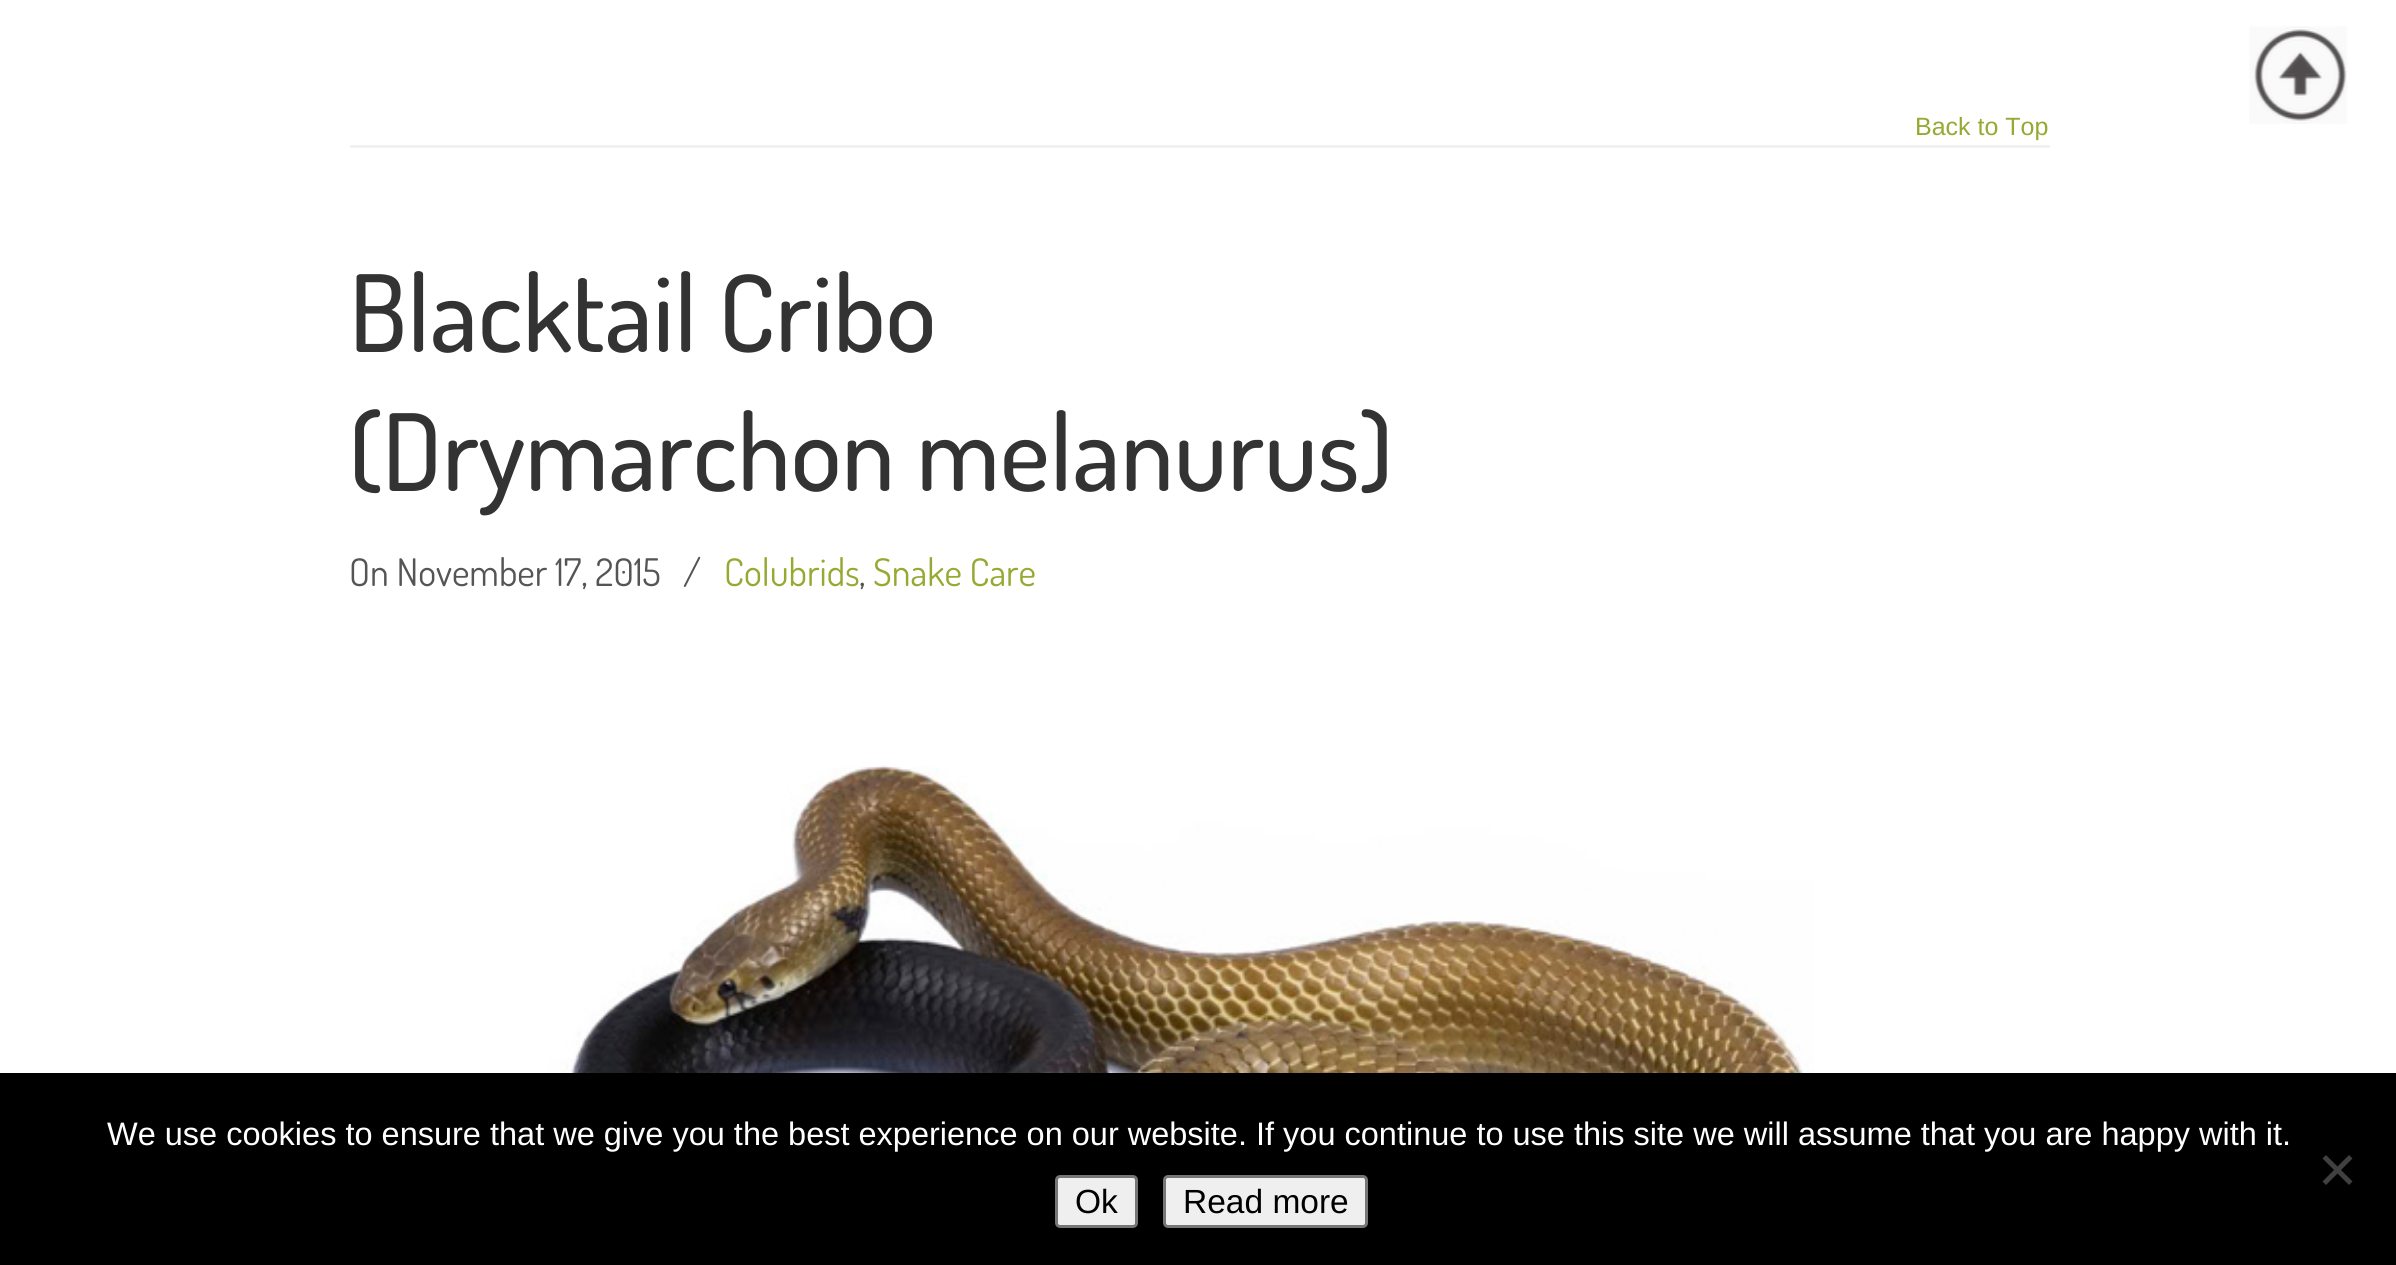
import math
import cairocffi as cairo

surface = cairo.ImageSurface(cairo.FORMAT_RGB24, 2396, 1265)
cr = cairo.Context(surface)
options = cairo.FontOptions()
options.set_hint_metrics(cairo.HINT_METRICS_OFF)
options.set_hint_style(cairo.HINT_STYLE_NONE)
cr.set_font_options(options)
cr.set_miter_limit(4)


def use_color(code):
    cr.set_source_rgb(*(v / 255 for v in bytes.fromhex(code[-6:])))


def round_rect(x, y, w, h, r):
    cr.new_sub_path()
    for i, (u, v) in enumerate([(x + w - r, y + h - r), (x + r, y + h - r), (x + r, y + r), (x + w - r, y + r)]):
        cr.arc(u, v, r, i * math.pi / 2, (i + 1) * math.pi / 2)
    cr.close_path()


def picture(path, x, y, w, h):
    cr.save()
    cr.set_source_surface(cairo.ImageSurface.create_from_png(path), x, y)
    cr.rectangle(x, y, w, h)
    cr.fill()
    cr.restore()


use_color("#ffffff")
cr.paint()
picture("img1.png", 2249, 26, 99, 98)
picture("img2.png", 350, 145, 1700, 3)
cr.select_font_face("Liberation Sans")
cr.set_font_size(25)
use_color("#96a933")
cr.move_to(1915, 135)
cr.show_text("Back to Top")
cr.select_font_face("Dosis Medium")
cr.set_font_size(106.5)
use_color("#333333")
cr.move_to(349, 352)
cr.show_text("Blacktail Cribo")
cr.move_to(349, 491)
cr.show_text("(Drymarchon melanurus)")
cr.select_font_face("Dosis")
cr.set_font_size(38)
use_color("#555555")
cr.move_to(349, 586)
cr.show_text("On November 17, 2015")
cr.move_to(683, 586)
cr.show_text("/")
use_color("#96a933")
cr.move_to(724, 586)
cr.show_text("Colubrids")
use_color("#555555")
cr.move_to(859, 586)
cr.show_text(",")
use_color("#96a933")
cr.move_to(873, 586)
cr.show_text("Snake Care")
picture("img3.png", 546, 765, 1268, 308)
use_color("#000000")
cr.rectangle(0, 1073, 2396, 192)
cr.fill()
cr.select_font_face("Liberation Sans")
cr.set_font_size(32.5)
use_color("#ffffff")
cr.move_to(107, 1145)
cr.show_text("We use cookies to ensure that we give you the best experience on our website. If you continue to use this site we will assume that you are happy with it.")
use_color("#404040")
cr.new_path()
cr.move_to(2349, 1155)
cr.line_to(2352.5, 1158.5)
cr.line_to(2326, 1185)
cr.line_to(2322.5, 1181.5)
cr.close_path()
cr.fill()
cr.new_path()
cr.move_to(2322.5, 1158.5)
cr.line_to(2326, 1155)
cr.line_to(2352.5, 1181.5)
cr.line_to(2349, 1185)
cr.close_path()
cr.fill()
use_color("#efefef")
round_rect(1056.5, 1176.5, 80, 50, 3.5)
cr.fill_preserve()
use_color("#767676")
cr.set_line_width(3)
cr.stroke()
cr.set_font_size(33.5)
use_color("#000000")
cr.move_to(1075, 1213)
cr.show_text("Ok")
use_color("#efefef")
round_rect(1164.5, 1176.5, 202, 50, 3.5)
cr.fill_preserve()
use_color("#767676")
cr.stroke()
use_color("#000000")
cr.move_to(1183, 1213)
cr.show_text("Read more")
surface.write_to_png("result.png")
